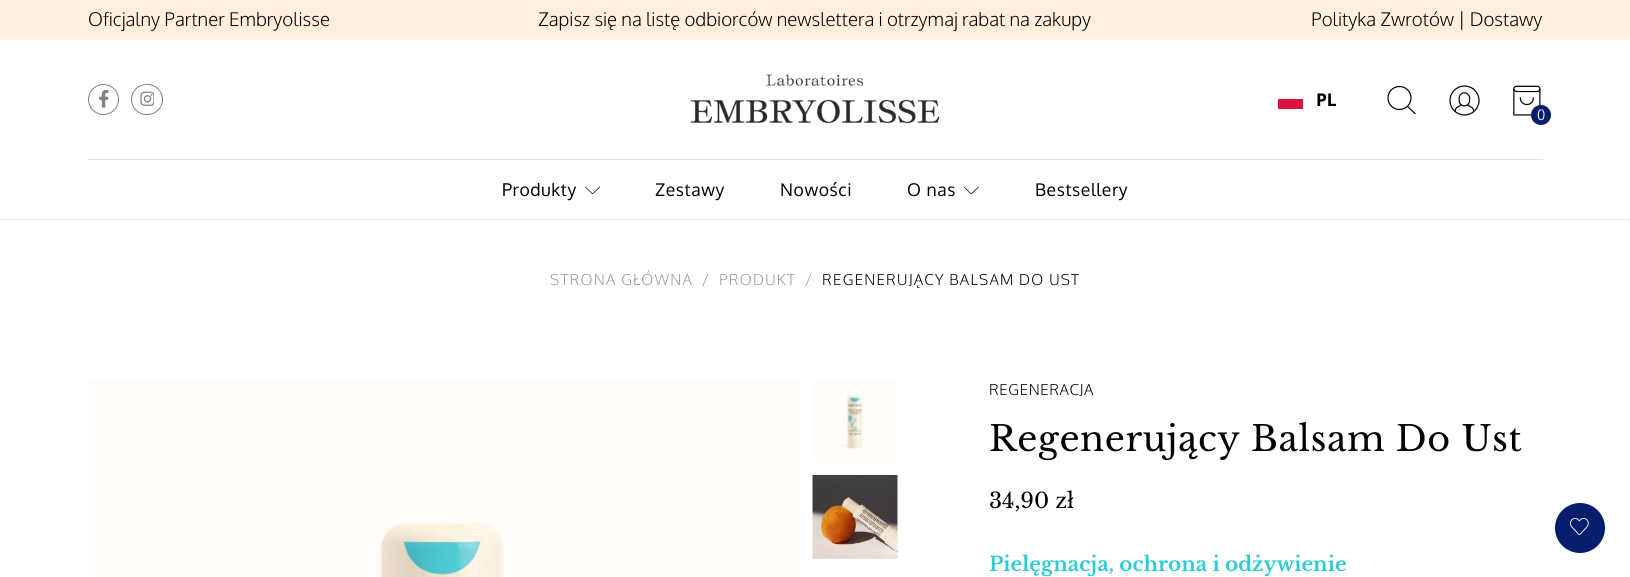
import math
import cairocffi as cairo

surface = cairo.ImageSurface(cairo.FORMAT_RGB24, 1630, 577)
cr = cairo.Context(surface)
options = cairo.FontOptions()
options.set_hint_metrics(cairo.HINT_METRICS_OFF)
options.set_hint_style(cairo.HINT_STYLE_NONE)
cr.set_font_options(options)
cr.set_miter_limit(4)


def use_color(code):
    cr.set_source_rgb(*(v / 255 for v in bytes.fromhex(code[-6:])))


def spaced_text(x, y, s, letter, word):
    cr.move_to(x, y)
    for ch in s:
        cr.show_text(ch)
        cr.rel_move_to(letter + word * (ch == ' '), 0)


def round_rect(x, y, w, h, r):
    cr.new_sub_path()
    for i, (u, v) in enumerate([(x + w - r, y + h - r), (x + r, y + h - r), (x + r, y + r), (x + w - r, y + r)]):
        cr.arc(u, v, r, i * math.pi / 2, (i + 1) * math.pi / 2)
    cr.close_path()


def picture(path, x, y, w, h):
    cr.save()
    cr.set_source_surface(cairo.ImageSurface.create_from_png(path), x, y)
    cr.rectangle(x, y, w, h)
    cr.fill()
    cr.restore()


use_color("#ffffff")
cr.paint()
use_color("#ededee")
cr.rectangle(0, 219, 1630, 1)
cr.fill()
use_color("#fff0de")
cr.rectangle(0, 0, 1630, 40)
cr.fill()
cr.select_font_face("Oxygen Light")
cr.set_font_size(18.75)
use_color("#000000")
cr.move_to(88, 26)
cr.show_text("Oficjalny Partner Embryolisse")
cr.move_to(538, 26)
cr.show_text("Zapisz się na listę odbiorców newslettera i otrzymaj rabat na zakupy")
cr.move_to(1311, 26)
cr.show_text("Polityka Zwrotów")
cr.move_to(1458, 26)
cr.show_text("| Dostawy")
use_color("#e0e1e2")
cr.rectangle(88, 159, 1455, 1)
cr.fill()
cr.arc(103.5, 99.5, 15, 0, 2 * math.pi)
use_color("#828282")
cr.set_line_width(1)
cr.stroke()
picture("img1.png", 99, 90, 10, 18)
round_rect(131.5, 84.5, 31, 30, 15)
cr.stroke()
picture("img2.png", 140, 91, 14, 15)
picture("img3.png", 690, 74, 250, 50)
use_color("#dc143c")
cr.rectangle(1278, 99, 25, 10)
cr.fill()
cr.select_font_face("Noto Sans", cairo.FONT_SLANT_NORMAL, cairo.FONT_WEIGHT_BOLD)
cr.set_font_size(17.5)
use_color("#000000")
cr.move_to(1316, 106)
cr.show_text("PL")
cr.new_path()
cr.move_to(1415, 113.5)
cr.line_to(1407.5, 106.5)
cr.set_line_width(1.2)
cr.set_line_cap(cairo.LINE_CAP_SQUARE)
cr.stroke()
cr.arc(1399.5, 98, 11.5, 0, 2 * math.pi)
cr.set_line_cap(cairo.LINE_CAP_BUTT)
cr.stroke()
picture("img4.png", 1449, 85, 31, 31)
picture("img5.png", 1513, 85, 28, 31)
use_color("#061f6c")
cr.arc(1541, 115, 10, 0, 2 * math.pi)
cr.fill()
cr.select_font_face("Oxygen Light")
cr.set_font_size(14)
use_color("#ffffff")
cr.move_to(1537, 120)
cr.show_text("0")
cr.select_font_face("Oxygen")
cr.set_font_size(17.5)
use_color("#000000")
spaced_text(502, 196, "Produkty", 0.6, 0)
picture("img6.png", 585, 186, 15, 8)
spaced_text(655, 196, "Zestawy", 0.6, 0)
spaced_text(780, 196, "Nowości", 0.6, 0)
spaced_text(907, 196, "O nas", 0.6, 0)
picture("img7.png", 963, 186, 16, 8)
spaced_text(1035, 196, "Bestsellery", 0.6, 0)
use_color("#061f6c")
cr.new_path()
cr.arc(1580, 528, 25, 0, 2 * math.pi)
cr.fill()
picture("img8.png", 1570, 518, 19, 17)
cr.select_font_face("Oxygen Light")
cr.set_font_size(15)
use_color("#999999")
spaced_text(550, 285, "STRONA GŁÓWNA", 1.25, 0)
spaced_text(702, 285, "/", 1.25, 0)
spaced_text(719, 285, "PRODUKT", 1.25, 0)
spaced_text(805, 285, "/", 1.25, 0)
use_color("#000000")
spaced_text(822, 285, "REGENERUJĄCY BALSAM DO UST", 1.25, 0)
picture("img9.png", 88, 379, 712, 198)
picture("img10.png", 813, 379, 84, 83)
picture("img11.png", 812, 475, 86, 84)
spaced_text(989, 395, "REGENERACJA", 0.6, 0)
cr.select_font_face("Libre Baskerville")
cr.set_font_size(35)
spaced_text(989, 451, "Regenerujący Balsam Do Ust", 0.6, 0)
cr.set_font_size(21.25)
cr.move_to(989, 508)
cr.show_text("34,90 zł")
cr.select_font_face("Libre Baskerville", cairo.FONT_SLANT_NORMAL, cairo.FONT_WEIGHT_BOLD)
cr.set_font_size(20)
use_color("#2dccd3")
cr.move_to(989, 571)
cr.show_text("Pielęgnacja, ochrona i odżywienie")
surface.write_to_png("result.png")
